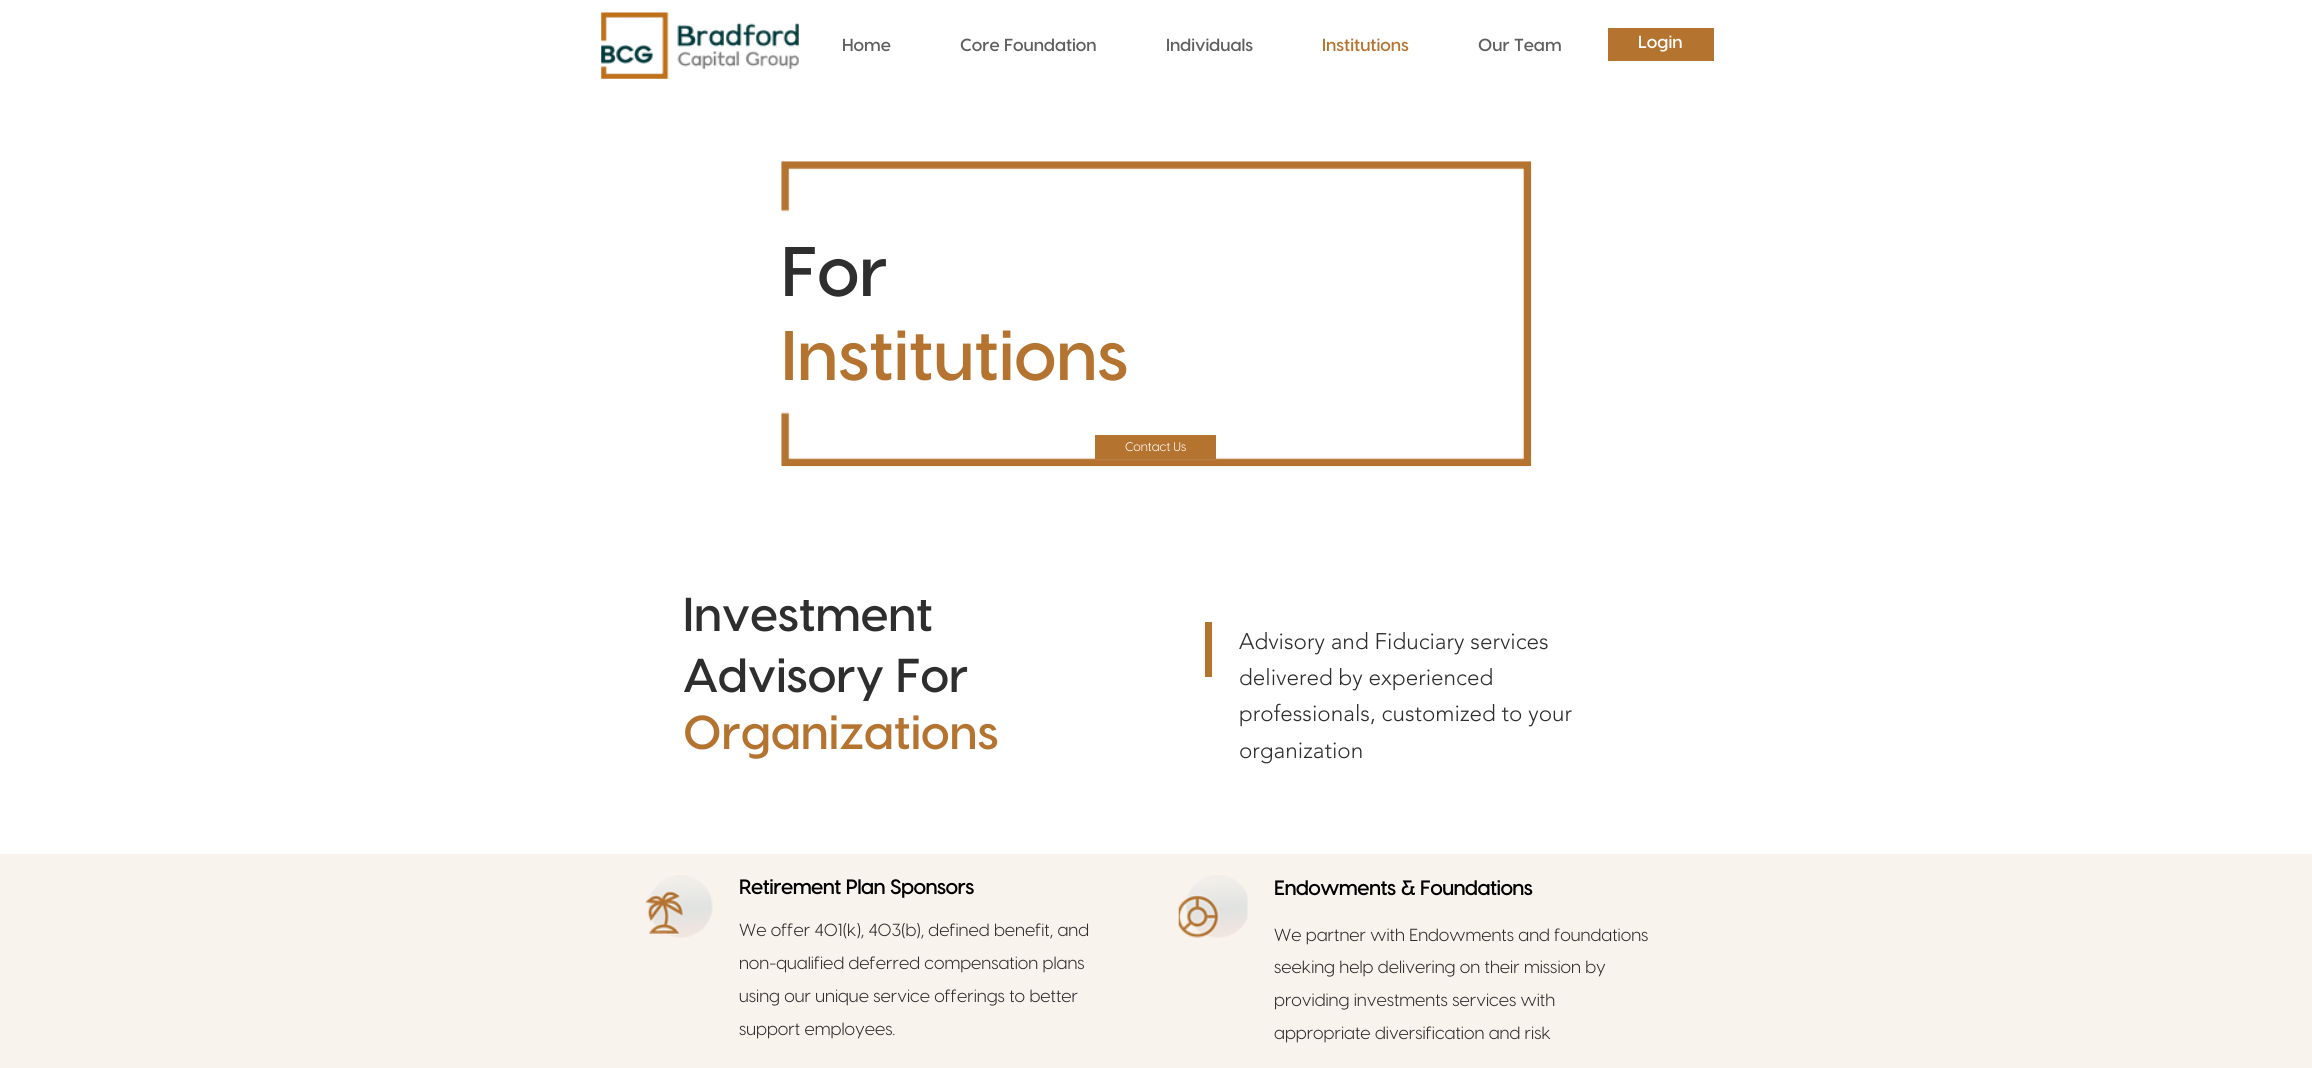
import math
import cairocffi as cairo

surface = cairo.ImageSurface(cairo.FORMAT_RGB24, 2312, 1068)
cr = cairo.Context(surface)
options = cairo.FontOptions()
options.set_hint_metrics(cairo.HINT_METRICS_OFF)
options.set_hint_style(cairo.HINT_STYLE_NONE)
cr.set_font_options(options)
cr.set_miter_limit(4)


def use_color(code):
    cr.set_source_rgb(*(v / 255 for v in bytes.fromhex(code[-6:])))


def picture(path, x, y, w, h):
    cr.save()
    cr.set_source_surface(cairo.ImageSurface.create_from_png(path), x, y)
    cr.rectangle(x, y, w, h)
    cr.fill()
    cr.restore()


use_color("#ffffff")
cr.paint()
picture("img1.png", 601, 12, 198, 67)
cr.select_font_face("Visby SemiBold")
cr.set_font_size(17.5)
use_color("#605e5e")
cr.move_to(842, 51)
cr.show_text("Home")
cr.move_to(960, 51)
cr.show_text("Core Foundation")
cr.move_to(1166, 51)
cr.show_text("Individuals")
use_color("#b57330")
cr.move_to(1322, 51)
cr.show_text("Institutions")
use_color("#605e5e")
cr.move_to(1478, 51)
cr.show_text("Our Team")
use_color("#b57330")
cr.rectangle(1608, 28, 106, 33)
cr.fill()
use_color("#ffffff")
cr.move_to(1638, 48)
cr.show_text("Login")
cr.set_font_size(70)
use_color("#2f2e2e")
cr.move_to(781, 296)
cr.show_text("For")
use_color("#b57330")
cr.move_to(781, 380)
cr.show_text("Institutions")
picture("img2.png", 781, 161, 751, 306)
cr.rectangle(1095, 435, 121, 24)
cr.fill()
cr.select_font_face("Visby")
cr.set_font_size(12.5)
use_color("#ffffff")
cr.move_to(1125, 451)
cr.show_text("Contact Us")
cr.select_font_face("Visby SemiBold")
cr.set_font_size(47.5)
use_color("#2f2e2e")
cr.move_to(683, 631)
cr.show_text("Investment")
cr.move_to(683, 692)
cr.show_text("Advisory For")
use_color("#b57330")
cr.move_to(683, 749)
cr.show_text("Organizations")
use_color("#b6732e")
cr.rectangle(1205, 622, 7, 55)
cr.fill()
cr.select_font_face("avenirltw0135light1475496 Light")
cr.set_font_size(22.5)
use_color("#2f2e2e")
cr.move_to(1239, 649)
cr.show_text("Advisory and Fiduciary services")
cr.move_to(1239, 685)
cr.show_text("delivered by experienced")
cr.move_to(1239, 721)
cr.show_text("professionals, customized to your")
cr.move_to(1239, 758)
cr.show_text("organization")
use_color("#f9f3ee")
cr.rectangle(0, 854, 2312, 214)
cr.fill()
picture("img3.png", 645, 875, 68, 63)
cr.select_font_face("Visby", cairo.FONT_SLANT_NORMAL, cairo.FONT_WEIGHT_BOLD)
cr.set_font_size(20)
use_color("#000000")
cr.move_to(739, 894)
cr.show_text("Retirement Plan Sponsors")
cr.select_font_face("Visby")
cr.set_font_size(17.5)
use_color("#2f2e2e")
cr.move_to(739, 936)
cr.show_text("We offer 401(k), 403(b), defined benefit, and")
cr.move_to(739, 969)
cr.show_text("non-qualified deferred compensation plans")
cr.move_to(739, 1002)
cr.show_text("using our unique service offerings to better")
cr.move_to(739, 1035)
cr.show_text("support employees.")
picture("img4.png", 1178, 875, 70, 63)
cr.select_font_face("Visby", cairo.FONT_SLANT_NORMAL, cairo.FONT_WEIGHT_BOLD)
cr.set_font_size(20)
use_color("#000000")
cr.move_to(1274, 895)
cr.show_text("Endowments & Foundations")
cr.select_font_face("Visby")
cr.set_font_size(17.5)
use_color("#2f2e2e")
cr.move_to(1274, 941)
cr.show_text("We partner with Endowments and foundations")
cr.move_to(1274, 973)
cr.show_text("seeking help delivering on their mission by")
cr.move_to(1274, 1006)
cr.show_text("providing investments services with")
cr.move_to(1274, 1039)
cr.show_text("appropriate diversification and risk")
surface.write_to_png("result.png")
